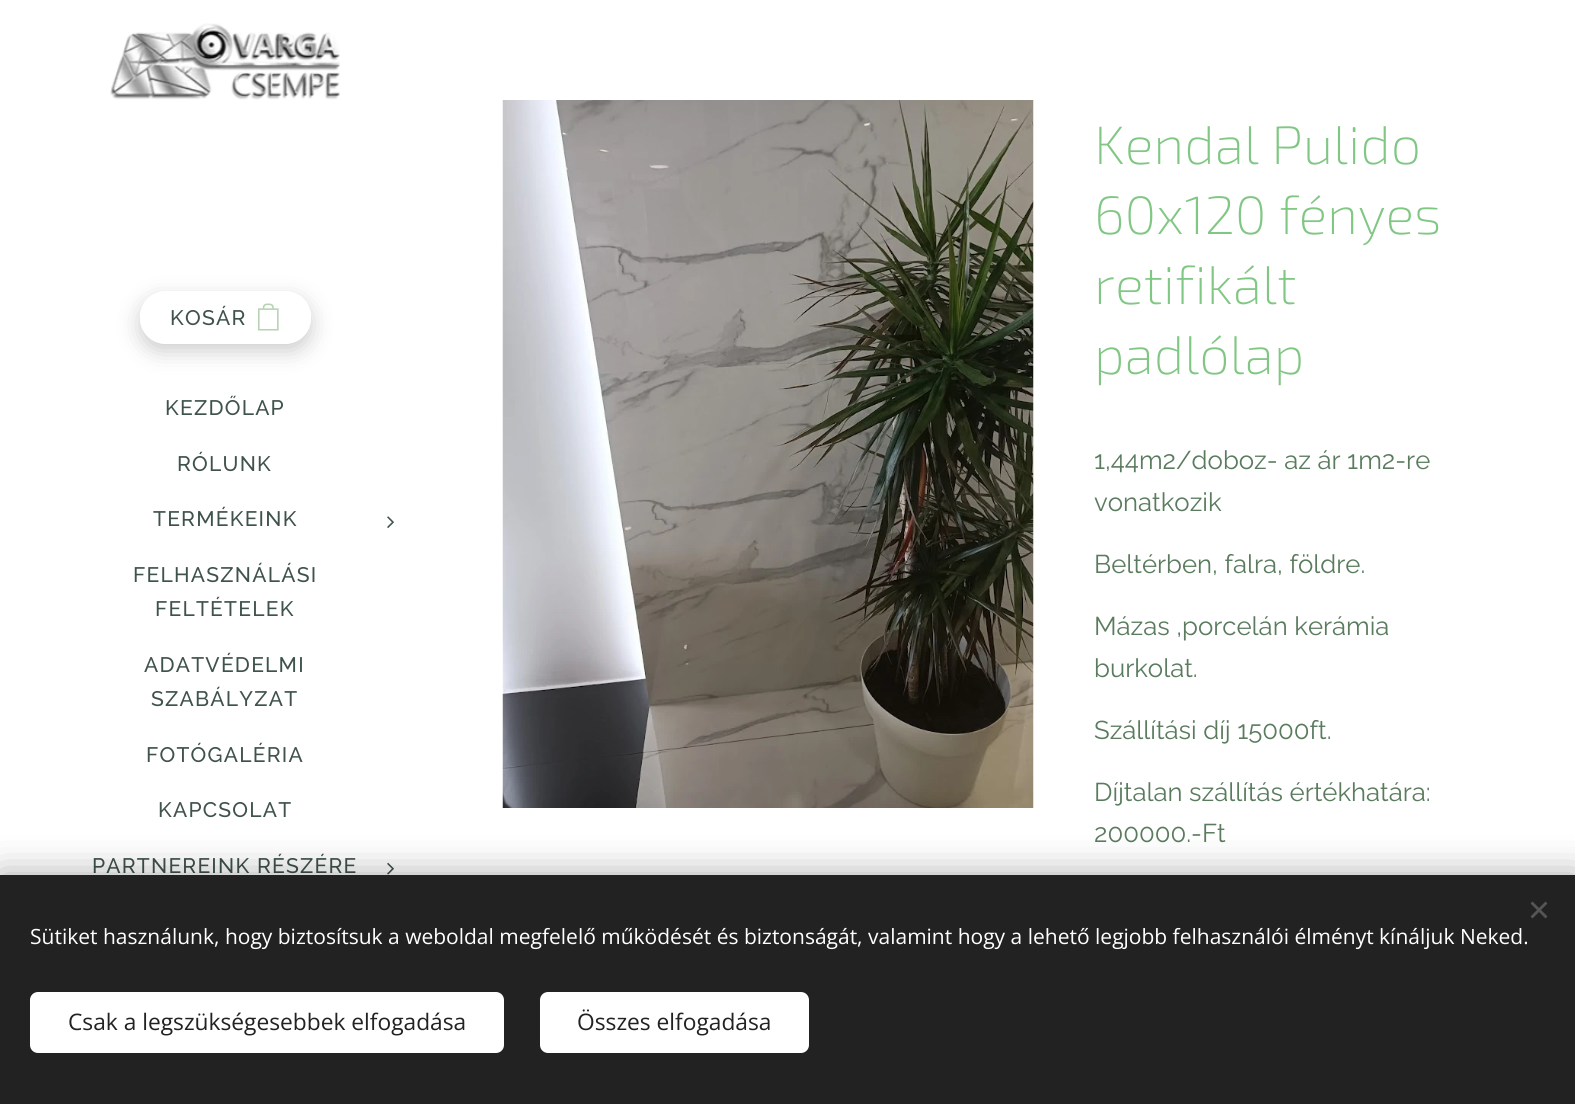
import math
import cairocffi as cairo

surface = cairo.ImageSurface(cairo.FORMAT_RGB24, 1575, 1104)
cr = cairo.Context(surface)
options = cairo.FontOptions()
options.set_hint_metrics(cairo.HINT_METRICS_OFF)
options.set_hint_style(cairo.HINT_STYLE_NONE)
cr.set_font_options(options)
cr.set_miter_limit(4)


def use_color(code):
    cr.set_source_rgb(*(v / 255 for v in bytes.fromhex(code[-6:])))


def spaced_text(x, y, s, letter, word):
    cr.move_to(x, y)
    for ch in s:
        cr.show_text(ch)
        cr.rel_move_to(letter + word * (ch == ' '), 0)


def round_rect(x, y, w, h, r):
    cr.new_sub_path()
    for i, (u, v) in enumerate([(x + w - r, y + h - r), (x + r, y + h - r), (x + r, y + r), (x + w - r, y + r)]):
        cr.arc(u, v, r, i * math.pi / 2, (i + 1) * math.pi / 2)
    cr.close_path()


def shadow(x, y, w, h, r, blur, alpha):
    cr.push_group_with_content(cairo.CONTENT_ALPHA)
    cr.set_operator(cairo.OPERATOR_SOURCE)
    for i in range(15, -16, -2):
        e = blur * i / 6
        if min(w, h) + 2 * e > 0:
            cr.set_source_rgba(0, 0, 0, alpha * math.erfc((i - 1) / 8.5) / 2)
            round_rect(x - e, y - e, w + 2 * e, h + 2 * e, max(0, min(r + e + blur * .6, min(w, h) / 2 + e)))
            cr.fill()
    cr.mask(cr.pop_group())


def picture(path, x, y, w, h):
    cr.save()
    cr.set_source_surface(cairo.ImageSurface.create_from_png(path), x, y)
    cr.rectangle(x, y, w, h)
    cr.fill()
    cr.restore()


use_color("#ffffff")
cr.paint()
picture("img1.png", 110, 23, 230, 77)
cr.save()
cr.set_fill_rule(cairo.FILL_RULE_EVEN_ODD)
cr.new_path()
cr.move_to(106, 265)
cr.line_to(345, 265)
cr.line_to(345, 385)
cr.line_to(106, 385)
cr.close_path()
cr.move_to(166, 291)
cr.line_to(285, 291)
cr.curve_to(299.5, 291, 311, 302.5, 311, 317)
cr.line_to(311, 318)
cr.curve_to(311, 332.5, 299.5, 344, 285, 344)
cr.line_to(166, 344)
cr.curve_to(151.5, 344, 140, 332.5, 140, 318)
cr.line_to(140, 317)
cr.curve_to(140, 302.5, 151.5, 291, 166, 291)
cr.close_path()
cr.clip()
use_color("#000000")
shadow(140, 299, 171, 52, 26, 11, 0.2)
cr.restore()
cr.set_source_rgba(1, 1, 1, 0.2)
round_rect(140, 291, 171, 53, 26)
cr.fill()
cr.select_font_face("Raleway Medium")
cr.set_font_size(21)
use_color("#3f524c")
spaced_text(170, 325, "KOSÁR", 1.25, 0)
picture("img2.png", 258, 303, 21, 28)
spaced_text(165, 415, "KEZDŐLAP", 1.25, 0)
spaced_text(177, 471, "RÓLUNK", 1.25, 0)
spaced_text(153, 526, "TERMÉKEINK", 1.25, 0)
picture("img3.png", 387, 516, 7, 12)
spaced_text(133, 582, "FELHASZNÁLÁSI", 1.25, 0)
spaced_text(155, 616, "FELTÉTELEK", 1.25, 0)
spaced_text(144, 672, "ADATVÉDELMI", 1.25, 0)
spaced_text(151, 706, "SZABÁLYZAT", 1.25, 0)
spaced_text(146, 762, "FOTÓGALÉRIA", 1.25, 0)
spaced_text(158, 817, "KAPCSOLAT", 1.25, 0)
spaced_text(92, 873, "PARTNEREINK RÉSZÉRE", 1.25, 0)
picture("img4.png", 387, 862, 7, 13)
picture("img5.png", 502, 100, 532, 708)
cr.select_font_face("Exo 2 ExtraLight")
cr.set_font_size(54)
use_color("#81c784")
cr.move_to(1094, 164)
cr.show_text("Kendal Pulido")
cr.move_to(1094, 234)
cr.show_text("60x120 fényes")
cr.move_to(1094, 304)
cr.show_text("retifikált")
cr.move_to(1094, 374)
cr.show_text("padlólap")
cr.select_font_face("Raleway")
cr.set_font_size(25.75)
use_color("#5a7b5e")
cr.move_to(1094, 469)
cr.show_text("1,44m2/doboz- az ár 1m2-re")
cr.move_to(1094, 511)
cr.show_text("vonatkozik")
cr.move_to(1094, 573)
cr.show_text("Beltérben, falra, földre.")
cr.move_to(1094, 635)
cr.show_text("Mázas ,porcelán kerámia")
cr.move_to(1094, 677)
cr.show_text("burkolat.")
cr.move_to(1094, 739)
cr.show_text("Szállítási díj 15000ft.")
cr.move_to(1094, 801)
cr.show_text("Díjtalan szállítás értékhatára:")
cr.move_to(1094, 842)
cr.show_text("200000.-Ft")
use_color("#000000")
shadow(0, 875, 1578, 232, 0, 19, 0.33)
use_color("#222222")
cr.rectangle(0, 875, 1575, 229)
cr.fill()
use_color("#555555")
cr.new_path()
cr.move_to(1530.5, 916.5)
cr.line_to(1545.5, 901.5)
cr.line_to(1547.5, 903.5)
cr.line_to(1532.5, 918.5)
cr.close_path()
cr.fill()
cr.new_path()
cr.move_to(1532.5, 901.5)
cr.line_to(1547.5, 916.5)
cr.line_to(1545.5, 918.5)
cr.line_to(1530.5, 903.5)
cr.close_path()
cr.fill()
cr.select_font_face("Open Sans")
cr.set_font_size(21)
use_color("#ffffff")
cr.move_to(30, 944)
cr.show_text("Sütiket használunk, hogy biztosítsuk a weboldal megfelelő működését és biztonságát, valamint hogy a lehető legjobb felhasználói élményt kínáljuk Neked.")
round_rect(30, 992, 474, 61, 8)
cr.fill()
cr.set_font_size(22.75)
use_color("#222222")
cr.move_to(68, 1030)
cr.show_text("Csak a legszükségesebbek elfogadása")
use_color("#ffffff")
round_rect(540, 992, 269, 61, 8)
cr.fill()
use_color("#222222")
cr.move_to(577, 1030)
cr.show_text("Összes elfogadása")
surface.write_to_png("result.png")
